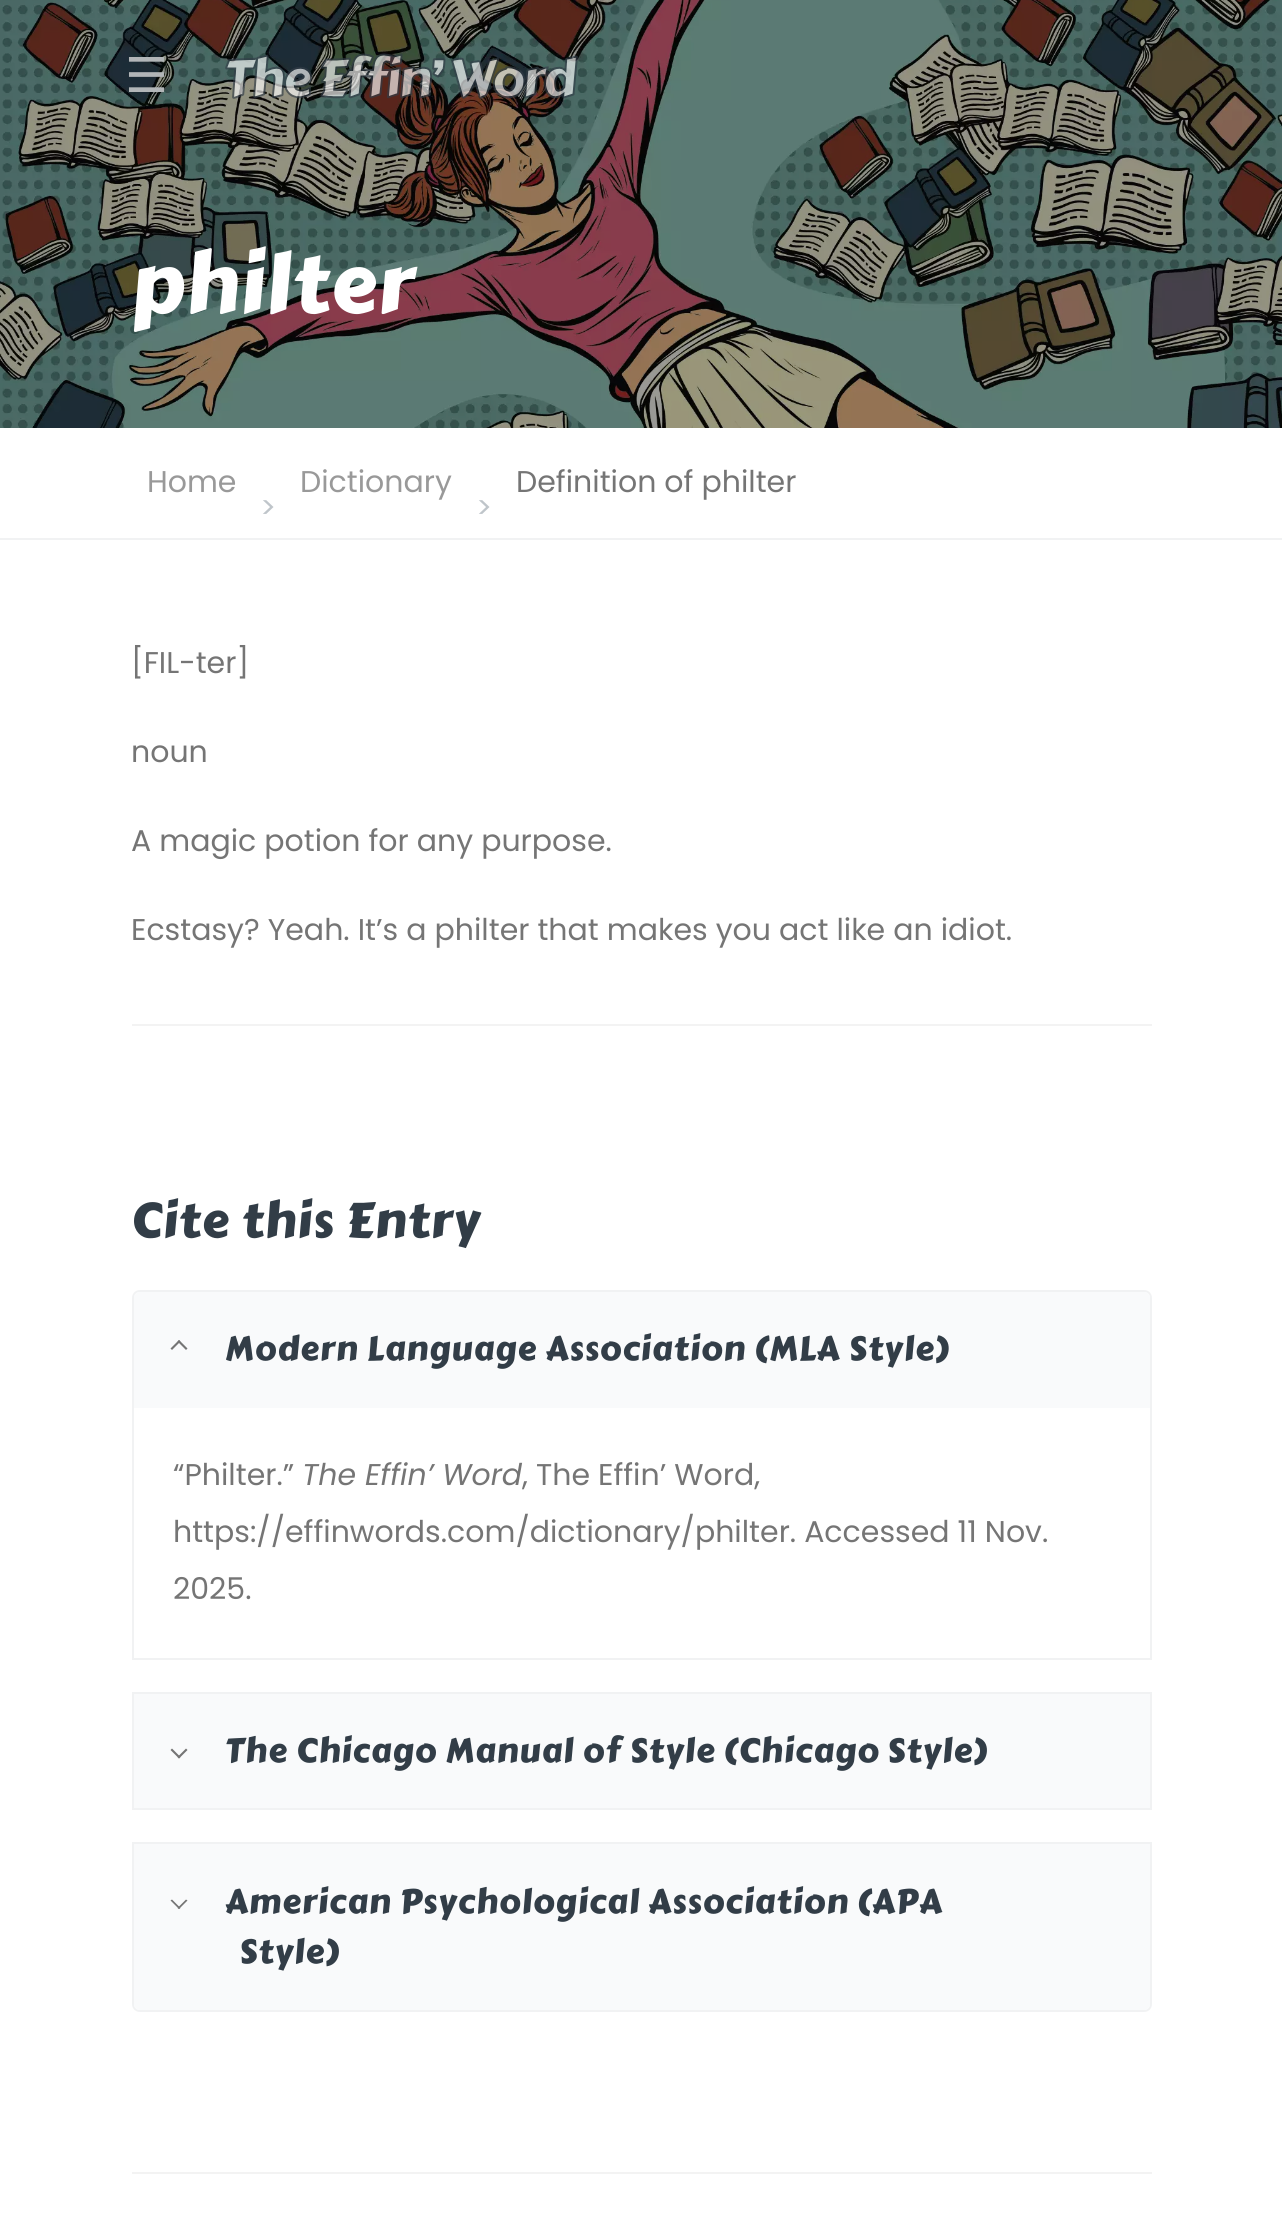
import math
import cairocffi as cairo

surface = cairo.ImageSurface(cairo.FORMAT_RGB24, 1282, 2238)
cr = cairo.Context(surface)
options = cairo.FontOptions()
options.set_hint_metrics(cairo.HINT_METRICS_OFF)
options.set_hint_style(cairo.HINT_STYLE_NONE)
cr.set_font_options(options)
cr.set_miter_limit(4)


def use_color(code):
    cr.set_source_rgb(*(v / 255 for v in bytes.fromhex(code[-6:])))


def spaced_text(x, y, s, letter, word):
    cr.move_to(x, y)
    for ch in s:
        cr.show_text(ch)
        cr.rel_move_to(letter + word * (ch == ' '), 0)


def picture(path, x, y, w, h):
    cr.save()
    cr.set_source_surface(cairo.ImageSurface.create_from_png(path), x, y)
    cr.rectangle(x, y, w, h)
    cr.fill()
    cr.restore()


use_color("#ffffff")
cr.paint()
picture("img2.png", 0, 0, 1282, 428)
cr.select_font_face("DejaVu Sans")
cr.set_font_size(48)
use_color("#b2b6b8")
cr.move_to(125, 92)
cr.show_text("☰")
picture("img1.png", 225, 53, 353, 46)
cr.select_font_face("Carter One")
cr.set_font_size(82.5)
use_color("#ffffff")
spaced_text(131, 312, "philter", 1, 0)
use_color("#f1f2f3")
cr.rectangle(0, 538, 1282, 2)
cr.fill()
cr.select_font_face("Poppins")
cr.set_font_size(30)
use_color("#999999")
cr.move_to(147, 492)
cr.show_text("Home")
cr.move_to(300, 492)
cr.show_text("Dictionary")
use_color("#bfc5ca")
cr.move_to(260, 518)
cr.show_text(">")
use_color("#757575")
cr.move_to(516, 492)
cr.show_text("Definition of philter")
use_color("#bfc5ca")
cr.move_to(476, 518)
cr.show_text(">")
use_color("#757575")
cr.move_to(131, 673)
cr.show_text("[FIL-ter]")
cr.move_to(131, 762)
cr.show_text("noun")
cr.move_to(131, 851)
cr.show_text("A magic potion for any purpose.")
cr.move_to(131, 940)
cr.show_text("Ecstasy? Yeah. It’s a philter that makes you act like an idiot.")
use_color("#f3f3f3")
cr.rectangle(132, 1024, 1020, 2)
cr.fill()
cr.select_font_face("Carter One")
cr.set_font_size(48.75)
use_color("#323d47")
spaced_text(131, 1237, "Cite this Entry", 1, 0)
cr.new_path()
cr.move_to(140, 1291)
cr.line_to(1144, 1291)
cr.curve_to(1148, 1291, 1151, 1294, 1151, 1298)
cr.line_to(1151, 1659)
cr.line_to(133, 1659)
cr.line_to(133, 1298)
cr.curve_to(133, 1294, 136, 1291, 140, 1291)
cr.close_path()
use_color("#f1f2f3")
cr.stroke()
use_color("#f9fafb")
cr.new_path()
cr.move_to(140, 1292)
cr.line_to(1144, 1292)
cr.curve_to(1147.5, 1292, 1150, 1294.5, 1150, 1298)
cr.line_to(1150, 1408)
cr.line_to(134, 1408)
cr.line_to(134, 1298)
cr.curve_to(134, 1294.5, 136.5, 1292, 140, 1292)
cr.close_path()
cr.fill()
use_color("#757575")
cr.new_path()
cr.move_to(179, 1340)
cr.line_to(187.5, 1348.5)
cr.line_to(186, 1350)
cr.line_to(177.5, 1341.5)
cr.close_path()
cr.fill()
cr.new_path()
cr.move_to(179, 1340)
cr.line_to(180.5, 1341.5)
cr.line_to(172, 1350)
cr.line_to(170.5, 1348.5)
cr.close_path()
cr.fill()
cr.set_font_size(33.75)
use_color("#323d47")
spaced_text(225, 1360, "Modern Language Association (MLA Style)", 1, 0)
cr.select_font_face("Poppins")
cr.set_font_size(30)
use_color("#757575")
cr.move_to(173, 1485)
cr.show_text("“Philter.”")
cr.select_font_face("Poppins", cairo.FONT_SLANT_ITALIC)
cr.move_to(302, 1485)
cr.show_text("The Effin’ Word")
cr.select_font_face("Poppins")
cr.move_to(522, 1485)
cr.show_text(", The Effin’ Word,")
cr.move_to(173, 1542)
cr.show_text("https://effinwords.com/dictionary/philter. Accessed 11 Nov.")
cr.move_to(173, 1599)
cr.show_text("2025.")
cr.rectangle(133, 1693, 1018, 116)
use_color("#f1f2f3")
cr.stroke()
use_color("#f9fafb")
cr.rectangle(134, 1694, 1016, 114)
cr.fill()
use_color("#757575")
cr.new_path()
cr.move_to(179, 1758.5)
cr.line_to(170.5, 1750)
cr.line_to(172, 1748.5)
cr.line_to(180.5, 1757)
cr.close_path()
cr.fill()
cr.new_path()
cr.move_to(179, 1758.5)
cr.line_to(177.5, 1757)
cr.line_to(186, 1748.5)
cr.line_to(187.5, 1750)
cr.close_path()
cr.fill()
cr.select_font_face("Carter One")
cr.set_font_size(33.75)
use_color("#323d47")
spaced_text(225, 1762, "The Chicago Manual of Style (Chicago", 1, 0)
spaced_text(887, 1762, "Style)", 1, 0)
cr.new_path()
cr.move_to(133, 1843)
cr.line_to(1151, 1843)
cr.line_to(1151, 2004)
cr.curve_to(1151, 2008, 1148, 2011, 1144, 2011)
cr.line_to(140, 2011)
cr.curve_to(136, 2011, 133, 2008, 133, 2004)
cr.close_path()
use_color("#f1f2f3")
cr.stroke()
use_color("#f9fafb")
cr.new_path()
cr.move_to(134, 1844)
cr.line_to(1150, 1844)
cr.line_to(1150, 2004)
cr.curve_to(1150, 2007.5, 1147.5, 2010, 1144, 2010)
cr.line_to(140, 2010)
cr.curve_to(136.5, 2010, 134, 2007.5, 134, 2004)
cr.close_path()
cr.fill()
use_color("#757575")
cr.new_path()
cr.move_to(179, 1909)
cr.line_to(170.5, 1900.5)
cr.line_to(172, 1899.5)
cr.line_to(180.5, 1908)
cr.close_path()
cr.fill()
cr.new_path()
cr.move_to(179, 1909)
cr.line_to(177.5, 1908)
cr.line_to(186, 1899.5)
cr.line_to(187.5, 1900.5)
cr.close_path()
cr.fill()
use_color("#323d47")
spaced_text(225, 1913, "American Psychological Association (APA", 1, 0)
spaced_text(239, 1963, "Style)", 1, 0)
use_color("#f3f3f3")
cr.rectangle(132, 2172, 1020, 2)
cr.fill()
surface.write_to_png("result.png")
